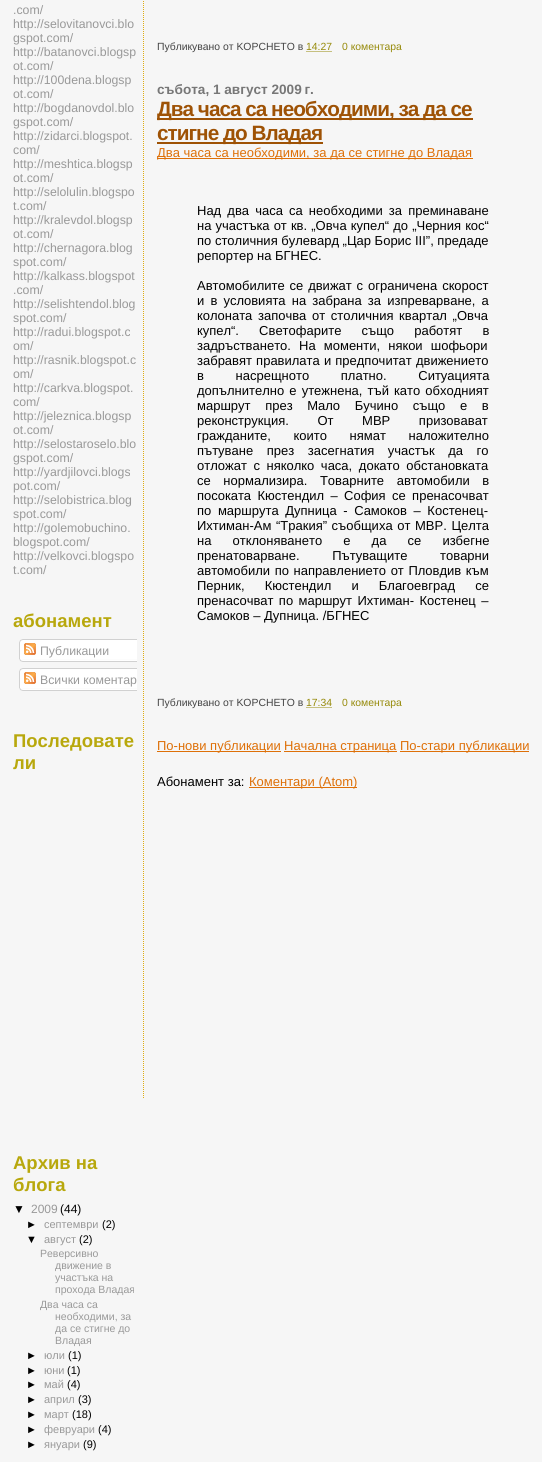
import math
import cairocffi as cairo

surface = cairo.ImageSurface(cairo.FORMAT_RGB24, 542, 1462)
cr = cairo.Context(surface)
options = cairo.FontOptions()
options.set_hint_metrics(cairo.HINT_METRICS_OFF)
options.set_hint_style(cairo.HINT_STYLE_NONE)
cr.set_font_options(options)
cr.set_miter_limit(4)


def use_color(code):
    cr.set_source_rgb(*(v / 255 for v in bytes.fromhex(code[-6:])))


def spaced_text(x, y, s, letter, word):
    cr.move_to(x, y)
    for ch in s:
        cr.show_text(ch)
        cr.rel_move_to(letter + word * (ch == ' '), 0)


def picture(path, x, y, w, h):
    cr.save()
    cr.set_source_surface(cairo.ImageSurface.create_from_png(path), x, y)
    cr.rectangle(x, y, w, h)
    cr.fill()
    cr.restore()


use_color("#f6f6f6")
cr.paint()
cr.select_font_face("Liberation Sans")
cr.set_font_size(12.3)
use_color("#999999")
cr.move_to(13, 14)
cr.show_text(".com/")
cr.move_to(13, 28)
cr.show_text("http://selovitanovci.blo")
cr.move_to(13, 42)
cr.show_text("gspot.com/")
cr.move_to(13, 56)
cr.show_text("http://batanovci.blogsp")
cr.move_to(13, 70)
cr.show_text("ot.com/")
cr.move_to(13, 84)
cr.show_text("http://100dena.blogsp")
cr.move_to(13, 98)
cr.show_text("ot.com/")
cr.move_to(13, 112)
cr.show_text("http://bogdanovdol.blo")
cr.move_to(13, 126)
cr.show_text("gspot.com/")
cr.move_to(13, 140)
cr.show_text("http://zidarci.blogspot.")
cr.move_to(13, 154)
cr.show_text("com/")
cr.move_to(13, 168)
cr.show_text("http://meshtica.blogsp")
cr.move_to(13, 182)
cr.show_text("ot.com/")
cr.move_to(13, 196)
cr.show_text("http://selolulin.blogspo")
cr.move_to(13, 210)
cr.show_text("t.com/")
cr.move_to(13, 224)
cr.show_text("http://kralevdol.blogsp")
cr.move_to(13, 238)
cr.show_text("ot.com/")
cr.move_to(13, 252)
cr.show_text("http://chernagora.blog")
cr.move_to(13, 266)
cr.show_text("spot.com/")
cr.move_to(13, 280)
cr.show_text("http://kalkass.blogspot")
cr.move_to(13, 294)
cr.show_text(".com/")
cr.move_to(13, 308)
cr.show_text("http://selishtendol.blog")
cr.move_to(13, 322)
cr.show_text("spot.com/")
cr.move_to(13, 336)
cr.show_text("http://radui.blogspot.c")
cr.move_to(13, 350)
cr.show_text("om/")
cr.move_to(13, 364)
cr.show_text("http://rasnik.blogspot.c")
cr.move_to(13, 378)
cr.show_text("om/")
cr.move_to(13, 392)
cr.show_text("http://carkva.blogspot.")
cr.move_to(13, 406)
cr.show_text("com/")
cr.move_to(13, 420)
cr.show_text("http://jeleznica.blogsp")
cr.move_to(13, 434)
cr.show_text("ot.com/")
cr.move_to(13, 448)
cr.show_text("http://selostaroselo.blo")
cr.move_to(13, 462)
cr.show_text("gspot.com/")
cr.move_to(13, 476)
cr.show_text("http://yardjilovci.blogs")
cr.move_to(13, 490)
cr.show_text("pot.com/")
cr.move_to(13, 504)
cr.show_text("http://selobistrica.blog")
cr.move_to(13, 518)
cr.show_text("spot.com/")
cr.move_to(13, 532)
cr.show_text("http://golemobuchino.")
cr.move_to(13, 546)
cr.show_text("blogspot.com/")
cr.move_to(13, 560)
cr.show_text("http://velkovci.blogspo")
cr.move_to(13, 574)
cr.show_text("t.com/")
cr.select_font_face("Liberation Sans", cairo.FONT_SLANT_NORMAL, cairo.FONT_WEIGHT_BOLD)
cr.set_font_size(18.5)
use_color("#b8a80d")
cr.move_to(13, 627)
cr.show_text("абонамент")
picture("img1.png", 19, 639, 118, 20)
picture("img2.png", 24, 643, 12, 12)
cr.select_font_face("Liberation Sans")
cr.set_font_size(12.3)
use_color("#999999")
cr.move_to(40, 655)
cr.show_text("Публикации")
picture("img3.png", 19, 659, 118, 3)
picture("img1.png", 19, 668, 118, 20)
picture("img2.png", 24, 672, 12, 12)
cr.move_to(40, 684)
cr.show_text("Всички коментар")
picture("img3.png", 19, 688, 118, 3)
cr.select_font_face("Liberation Sans", cairo.FONT_SLANT_NORMAL, cairo.FONT_WEIGHT_BOLD)
cr.set_font_size(18.5)
use_color("#b8a80d")
cr.move_to(13, 747)
cr.show_text("Последовате")
cr.move_to(13, 769)
cr.show_text("ли")
cr.move_to(13, 1169)
cr.show_text("Архив на")
cr.move_to(13, 1191)
cr.show_text("блога")
cr.select_font_face("Liberation Sans")
cr.set_font_size(12)
use_color("#000000")
cr.move_to(13, 1213)
cr.show_text("▼")
use_color("#999999")
cr.move_to(31, 1213)
cr.show_text("2009")
use_color("#000000")
cr.move_to(60, 1213)
cr.show_text("(44)")
cr.set_font_size(11)
cr.move_to(26, 1228)
cr.show_text("►")
use_color("#999999")
cr.move_to(44, 1228)
cr.show_text("септември")
use_color("#000000")
cr.move_to(102, 1228)
cr.show_text("(2)")
cr.move_to(26, 1243)
cr.show_text("▼")
use_color("#999999")
cr.move_to(44, 1243)
cr.show_text("август")
use_color("#000000")
cr.move_to(79, 1243)
cr.show_text("(2)")
cr.set_font_size(10.5)
use_color("#999999")
cr.move_to(40, 1257)
cr.show_text("Реверсивно")
cr.move_to(55, 1269)
cr.show_text("движение в")
cr.move_to(55, 1281)
cr.show_text("участъка на")
cr.move_to(55, 1293)
cr.show_text("прохода Владая")
cr.move_to(40, 1308)
cr.show_text("Два часа са")
cr.move_to(55, 1320)
cr.show_text("необходими, за")
cr.move_to(55, 1332)
cr.show_text("да се стигне до")
cr.move_to(55, 1344)
cr.show_text("Владая")
cr.set_font_size(11)
use_color("#000000")
cr.move_to(26, 1359)
cr.show_text("►")
use_color("#999999")
cr.move_to(44, 1359)
cr.show_text("юли")
use_color("#000000")
cr.move_to(68, 1359)
cr.show_text("(1)")
cr.move_to(26, 1374)
cr.show_text("►")
use_color("#999999")
cr.move_to(44, 1374)
cr.show_text("юни")
use_color("#000000")
cr.move_to(67, 1374)
cr.show_text("(1)")
cr.move_to(26, 1388)
cr.show_text("►")
use_color("#999999")
cr.move_to(44, 1388)
cr.show_text("май")
use_color("#000000")
cr.move_to(67, 1388)
cr.show_text("(4)")
cr.move_to(26, 1403)
cr.show_text("►")
use_color("#999999")
cr.move_to(44, 1403)
cr.show_text("април")
use_color("#000000")
cr.move_to(78, 1403)
cr.show_text("(3)")
cr.move_to(26, 1418)
cr.show_text("►")
use_color("#999999")
cr.move_to(44, 1418)
cr.show_text("март")
use_color("#000000")
cr.move_to(72, 1418)
cr.show_text("(18)")
cr.move_to(26, 1433)
cr.show_text("►")
use_color("#999999")
cr.move_to(44, 1433)
cr.show_text("февруари")
use_color("#000000")
cr.move_to(98, 1433)
cr.show_text("(4)")
cr.move_to(26, 1448)
cr.show_text("►")
use_color("#999999")
cr.move_to(44, 1448)
cr.show_text("януари")
use_color("#000000")
cr.move_to(83, 1448)
cr.show_text("(9)")
cr.new_path()
cr.move_to(143.5, -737)
cr.line_to(143.5, 1098)
use_color("#e0ad12")
cr.set_line_width(1)
cr.set_dash([1, 1])
cr.stroke()
cr.set_font_size(10.4)
use_color("#444444")
cr.move_to(157, 50)
cr.show_text("Публикувано от KOPCHETO в")
use_color("#968a0a")
cr.move_to(306, 50)
cr.show_text("14:27")
cr.new_path()
cr.move_to(306.5, 51.5)
cr.line_to(332.5, 51.5)
cr.stroke()
cr.move_to(342, 50)
cr.show_text("0 коментара")
cr.select_font_face("Liberation Sans", cairo.FONT_SLANT_NORMAL, cairo.FONT_WEIGHT_BOLD)
cr.set_font_size(13.6)
use_color("#777777")
cr.move_to(157, 94)
cr.show_text("събота, 1 август 2009 г.")
use_color("#9e5205")
cr.rectangle(157, 118, 316, 2)
cr.fill()
cr.set_font_size(20.75)
spaced_text(157, 116, "Два часа са необходими, за да се", -1, 0)
cr.rectangle(157, 142, 166, 2)
cr.fill()
spaced_text(157, 140, "стигне до Владая", -1, 0)
use_color("#de7008")
cr.rectangle(157, 158, 316, 1)
cr.fill()
cr.select_font_face("Liberation Sans")
cr.set_font_size(13)
cr.move_to(157, 157)
cr.show_text("Два часа са необходими, за да се стигне до Владая")
use_color("#000000")
spaced_text(197, 215, "Над два часа са необходими за преминаване", 0, 2.5)
spaced_text(197, 230, "на участъка от кв. „Овча купел“ до „Черния кос“", 0, 0.5)
cr.move_to(197, 245)
cr.show_text("по столичния булевард „Цар Борис III”, предаде")
cr.move_to(197, 260)
cr.show_text("репортер на БГНЕС.")
spaced_text(197, 290, "Автомобилите се движат с ограничена скорост", 0, 1.25)
spaced_text(197, 305, "и в условията на забрана за изпреварване, а", 0, 2.5)
spaced_text(197, 320, "колоната започва от столичния квартал „Овча", 0, 2)
spaced_text(197, 335, "купел“. Светофарите също работят в", 0, 16.5)
spaced_text(197, 350, "задръстването. На моменти, някои шофьори", 0, 4.5)
spaced_text(197, 365, "забравят правилата и предпочитат движението", 0, 0.5)
spaced_text(197, 380, "в насрещното платно. Ситуацията", 0, 28)
spaced_text(197, 395, "допълнително е утежнена, тъй като обходният", 0, 1.5)
spaced_text(197, 410, "маршрут през Мало Бучино също е в", 0, 11)
spaced_text(197, 425, "реконструкция. От МВР призовават", 0, 25)
spaced_text(197, 440, "гражданите, които нямат наложително", 0, 19)
spaced_text(197, 455, "пътуване през засегнатия участък да го", 0, 10)
spaced_text(197, 470, "отложат с няколко часа, докато обстановката", 0, 3)
spaced_text(197, 485, "се нормализира. Товарните автомобили в", 0, 9)
spaced_text(197, 500, "посоката Кюстендил – София се пренасочват", 0, 2.75)
spaced_text(197, 515, "по маршрута Дупница - Самоков – Костенец-", 0, 3)
spaced_text(197, 530, "Ихтиман-Ам “Тракия” съобщиха от МВР. Целта", 0, 1)
spaced_text(197, 545, "на отклоняването е да се избегне", 0, 17.5)
spaced_text(197, 560, "пренатоварване. Пътуващите товарни", 0, 29)
spaced_text(197, 575, "автомобили по направлението от Пловдив към", 0, 1)
spaced_text(197, 590, "Перник, Кюстендил и Благоевград се", 0, 16.5)
spaced_text(197, 605, "пренасочват по маршрут Ихтиман- Костенец –", 0, 1.75)
cr.move_to(197, 620)
cr.show_text("Самоков – Дупница. /БГНЕС")
cr.set_font_size(10.4)
use_color("#444444")
cr.move_to(157, 706)
cr.show_text("Публикувано от KOPCHETO в")
use_color("#968a0a")
cr.move_to(306, 706)
cr.show_text("17:34")
cr.new_path()
cr.move_to(306.5, 707.5)
cr.line_to(332.5, 707.5)
cr.stroke()
cr.move_to(342, 706)
cr.show_text("0 коментара")
use_color("#de7008")
cr.rectangle(157, 751, 124, 1)
cr.fill()
cr.set_font_size(13)
cr.move_to(157, 750)
cr.show_text("По-нови публикации")
cr.rectangle(284, 751, 113, 1)
cr.fill()
cr.move_to(284, 750)
cr.show_text("Начална страница")
cr.rectangle(400, 751, 129, 1)
cr.fill()
cr.move_to(400, 750)
cr.show_text("По-стари публикации")
use_color("#000000")
cr.move_to(157, 786)
cr.show_text("Абонамент за:")
use_color("#de7008")
cr.rectangle(249, 787, 108, 1)
cr.fill()
cr.move_to(249, 786)
cr.show_text("Коментари (Atom)")
surface.write_to_png("result.png")
